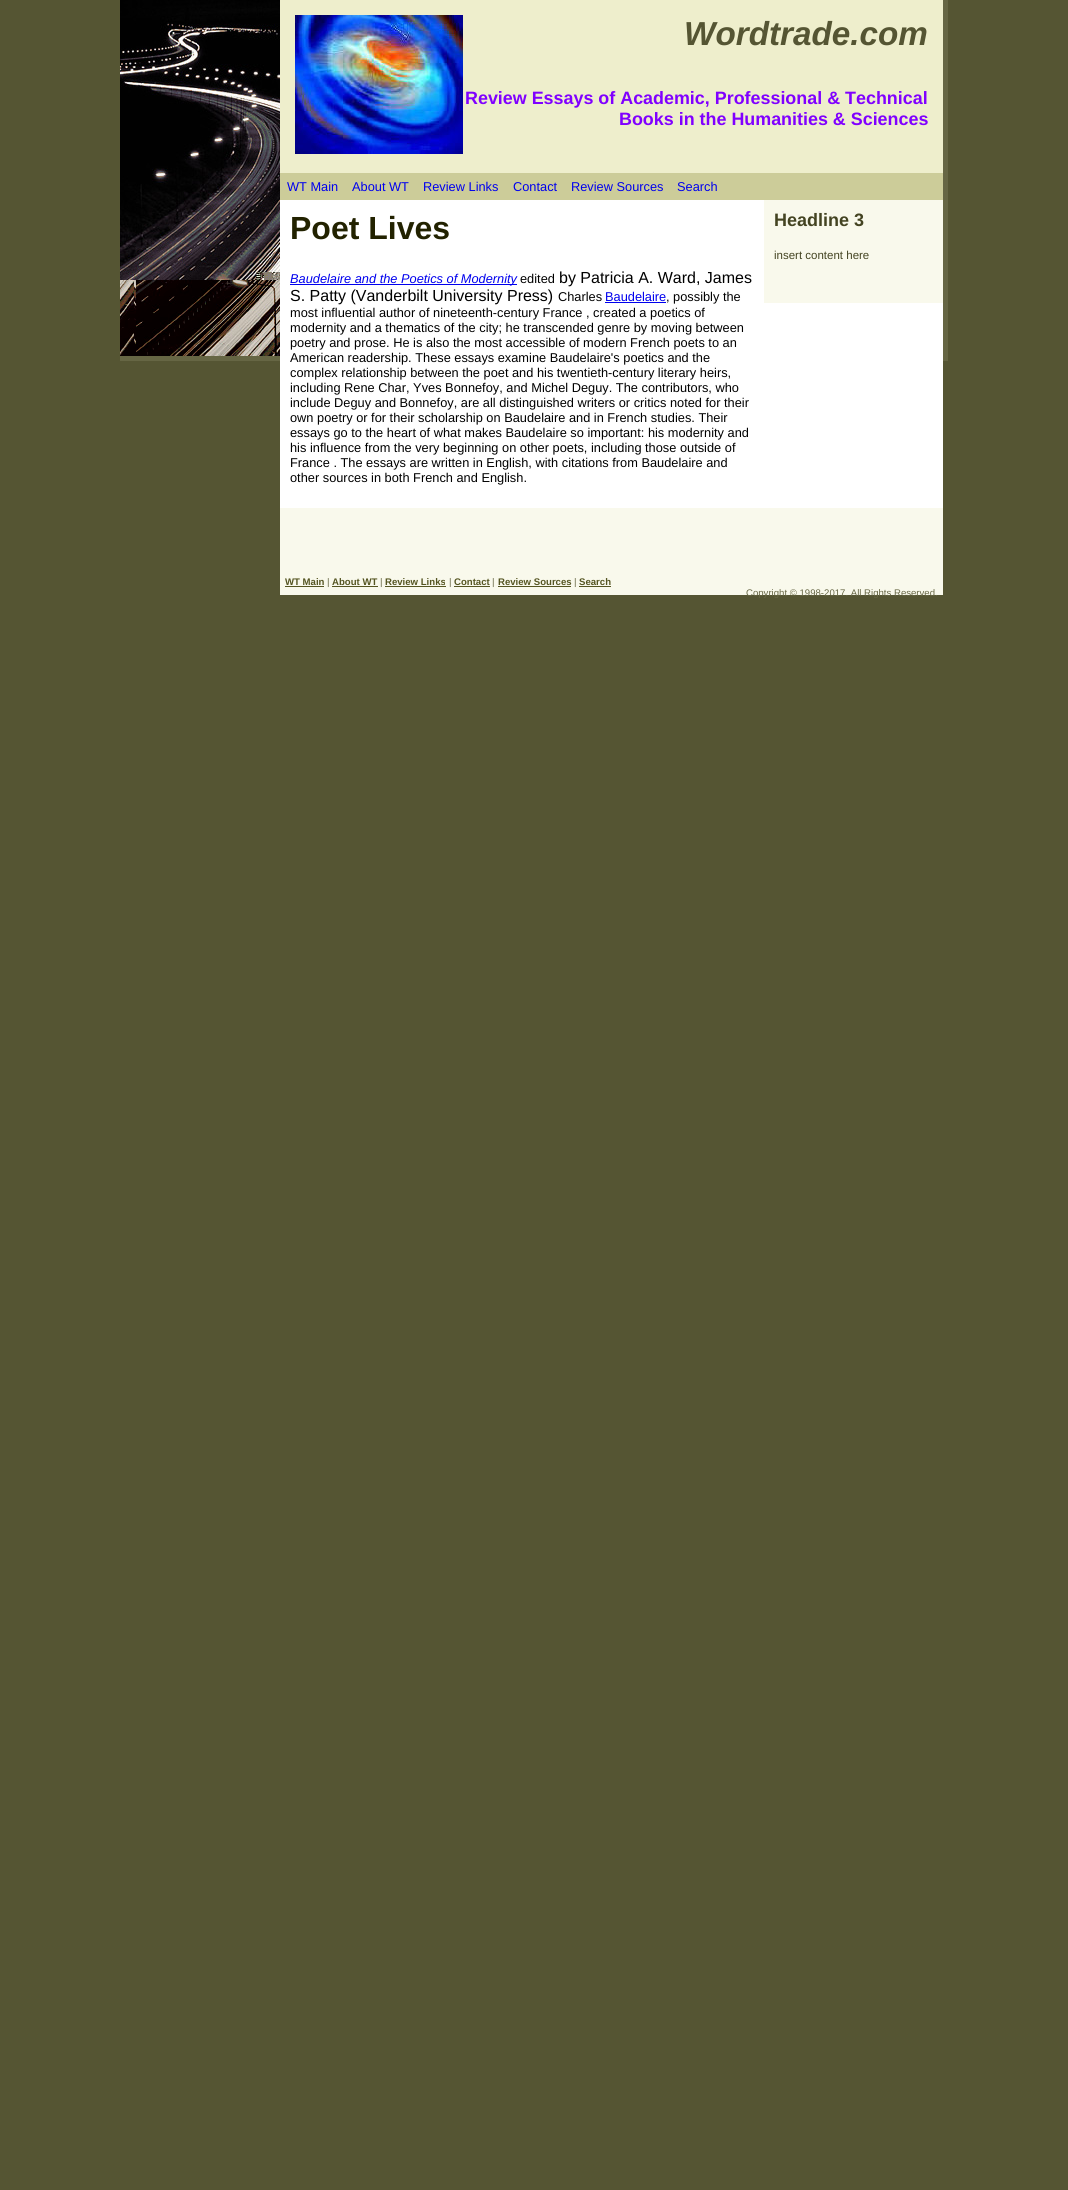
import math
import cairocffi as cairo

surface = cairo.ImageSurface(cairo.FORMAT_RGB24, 1068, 2190)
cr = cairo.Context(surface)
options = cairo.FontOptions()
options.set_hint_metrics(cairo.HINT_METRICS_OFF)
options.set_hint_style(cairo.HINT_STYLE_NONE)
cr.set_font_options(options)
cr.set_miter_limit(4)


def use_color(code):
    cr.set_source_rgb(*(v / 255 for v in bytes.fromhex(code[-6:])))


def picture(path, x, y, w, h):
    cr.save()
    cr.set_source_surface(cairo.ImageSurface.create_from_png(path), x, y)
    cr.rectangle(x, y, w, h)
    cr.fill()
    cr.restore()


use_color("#555533")
cr.paint()
picture("img1.png", 120, 0, 160, 356)
use_color("#666644")
cr.rectangle(943, 0, 5, 361)
cr.fill()
cr.rectangle(120, 356, 828, 5)
cr.fill()
use_color("#eeeecc")
cr.rectangle(280, 0, 663, 173)
cr.fill()
picture("img2.png", 295, 15, 168, 139)
cr.select_font_face("Liberation Sans", cairo.FONT_SLANT_ITALIC, cairo.FONT_WEIGHT_BOLD)
cr.set_font_size(33.25)
use_color("#555533")
cr.move_to(684, 45)
cr.show_text("Wordtrade.com")
cr.select_font_face("Liberation Sans", cairo.FONT_SLANT_NORMAL, cairo.FONT_WEIGHT_BOLD)
cr.set_font_size(17.9)
use_color("#8000ff")
cr.move_to(465, 104)
cr.show_text("Review Essays of Academic, Professional & Technical")
cr.move_to(619, 125)
cr.show_text("Books in the Humanities & Sciences")
use_color("#cccc99")
cr.rectangle(280, 173, 663, 27)
cr.fill()
cr.select_font_face("Liberation Sans")
cr.set_font_size(12.8)
use_color("#0000ee")
cr.move_to(287, 191)
cr.show_text("WT Main")
cr.move_to(352, 191)
cr.show_text("About WT")
cr.move_to(423, 191)
cr.show_text("Review Links")
cr.move_to(513, 191)
cr.show_text("Contact")
cr.move_to(571, 191)
cr.show_text("Review Sources")
cr.move_to(677, 191)
cr.show_text("Search")
use_color("#ffffff")
cr.rectangle(280, 200, 663, 308)
cr.fill()
cr.select_font_face("Liberation Sans", cairo.FONT_SLANT_NORMAL, cairo.FONT_WEIGHT_BOLD)
cr.set_font_size(32)
use_color("#222200")
cr.move_to(290, 239)
cr.show_text("Poet Lives")
use_color("#0000ee")
cr.rectangle(290, 284, 227, 1)
cr.fill()
cr.select_font_face("Liberation Sans", cairo.FONT_SLANT_ITALIC)
cr.set_font_size(12.8)
cr.move_to(290, 283)
cr.show_text("Baudelaire and the Poetics of Modernity")
cr.select_font_face("Liberation Sans")
use_color("#000000")
cr.move_to(520, 283)
cr.show_text("edited")
cr.set_font_size(16)
cr.move_to(559, 283)
cr.show_text("by Patricia A. Ward, James")
cr.move_to(290, 301)
cr.show_text("S. Patty (Vanderbilt University Press)")
cr.set_font_size(12.8)
cr.move_to(558, 301)
cr.show_text("Charles")
use_color("#0000ee")
cr.move_to(605, 301)
cr.show_text("Baudelaire")
use_color("#000000")
cr.move_to(666, 301)
cr.show_text(", possibly the")
use_color("#0000ee")
cr.rectangle(605, 302, 61, 1)
cr.fill()
use_color("#000000")
cr.move_to(290, 317)
cr.show_text("most influential author of nineteenth-century France , created a poetics of")
cr.move_to(290, 332)
cr.show_text("modernity and a thematics of the city; he transcended genre by moving between")
cr.move_to(290, 347)
cr.show_text("poetry and prose. He is also the most accessible of modern French poets to an")
cr.move_to(290, 362)
cr.show_text("American readership. These essays examine Baudelaire's poetics and the")
cr.move_to(290, 377)
cr.show_text("complex relationship between the poet and his twentieth-century literary heirs,")
cr.move_to(290, 392)
cr.show_text("including Rene Char, Yves Bonnefoy, and Michel Deguy. The contributors, who")
cr.move_to(290, 407)
cr.show_text("include Deguy and Bonnefoy, are all distinguished writers or critics noted for their")
cr.move_to(290, 422)
cr.show_text("own poetry or for their scholarship on Baudelaire and in French studies. Their")
cr.move_to(290, 437)
cr.show_text("essays go to the heart of what makes Baudelaire so important: his modernity and")
cr.move_to(290, 452)
cr.show_text("his influence from the very beginning on other poets, including those outside of")
cr.move_to(290, 467)
cr.show_text("France . The essays are written in English, with citations from Baudelaire and")
cr.move_to(290, 482)
cr.show_text("other sources in both French and English.")
use_color("#f9f9ec")
cr.rectangle(764, 200, 179, 103)
cr.fill()
cr.select_font_face("Liberation Sans", cairo.FONT_SLANT_NORMAL, cairo.FONT_WEIGHT_BOLD)
cr.set_font_size(18)
use_color("#444422")
cr.move_to(774, 226)
cr.show_text("Headline 3")
cr.select_font_face("Liberation Sans")
cr.set_font_size(11.5)
cr.move_to(774, 259)
cr.show_text("insert content here")
use_color("#f9f9ec")
cr.rectangle(280, 508, 663, 87)
cr.fill()
cr.select_font_face("Liberation Sans", cairo.FONT_SLANT_NORMAL, cairo.FONT_WEIGHT_BOLD)
cr.set_font_size(9.6)
use_color("#555522")
cr.move_to(285, 585)
cr.show_text("WT Main")
cr.rectangle(285, 586, 39, 1)
cr.fill()
cr.select_font_face("Liberation Sans")
use_color("#666644")
cr.move_to(327, 585)
cr.show_text("|")
cr.select_font_face("Liberation Sans", cairo.FONT_SLANT_NORMAL, cairo.FONT_WEIGHT_BOLD)
use_color("#555522")
cr.move_to(332, 585)
cr.show_text("About WT")
cr.rectangle(332, 586, 46, 1)
cr.fill()
cr.select_font_face("Liberation Sans")
use_color("#666644")
cr.move_to(380, 585)
cr.show_text("|")
cr.select_font_face("Liberation Sans", cairo.FONT_SLANT_NORMAL, cairo.FONT_WEIGHT_BOLD)
use_color("#555522")
cr.move_to(385, 585)
cr.show_text("Review Links")
cr.rectangle(385, 586, 61, 1)
cr.fill()
cr.select_font_face("Liberation Sans")
use_color("#666644")
cr.move_to(449, 585)
cr.show_text("|")
cr.select_font_face("Liberation Sans", cairo.FONT_SLANT_NORMAL, cairo.FONT_WEIGHT_BOLD)
use_color("#555522")
cr.move_to(454, 585)
cr.show_text("Contact")
cr.rectangle(454, 586, 36, 1)
cr.fill()
cr.select_font_face("Liberation Sans")
use_color("#666644")
cr.move_to(492, 585)
cr.show_text("|")
cr.select_font_face("Liberation Sans", cairo.FONT_SLANT_NORMAL, cairo.FONT_WEIGHT_BOLD)
use_color("#555522")
cr.move_to(498, 585)
cr.show_text("Review Sources")
cr.rectangle(498, 586, 73, 1)
cr.fill()
cr.select_font_face("Liberation Sans")
use_color("#666644")
cr.move_to(574, 585)
cr.show_text("|")
cr.select_font_face("Liberation Sans", cairo.FONT_SLANT_NORMAL, cairo.FONT_WEIGHT_BOLD)
use_color("#555522")
cr.move_to(579, 585)
cr.show_text("Search")
cr.rectangle(579, 586, 32, 1)
cr.fill()
cr.select_font_face("Liberation Sans")
use_color("#666644")
cr.move_to(746, 596)
cr.show_text("Copyright © 1998-2017. All Rights Reserved.")
surface.write_to_png("result.png")
